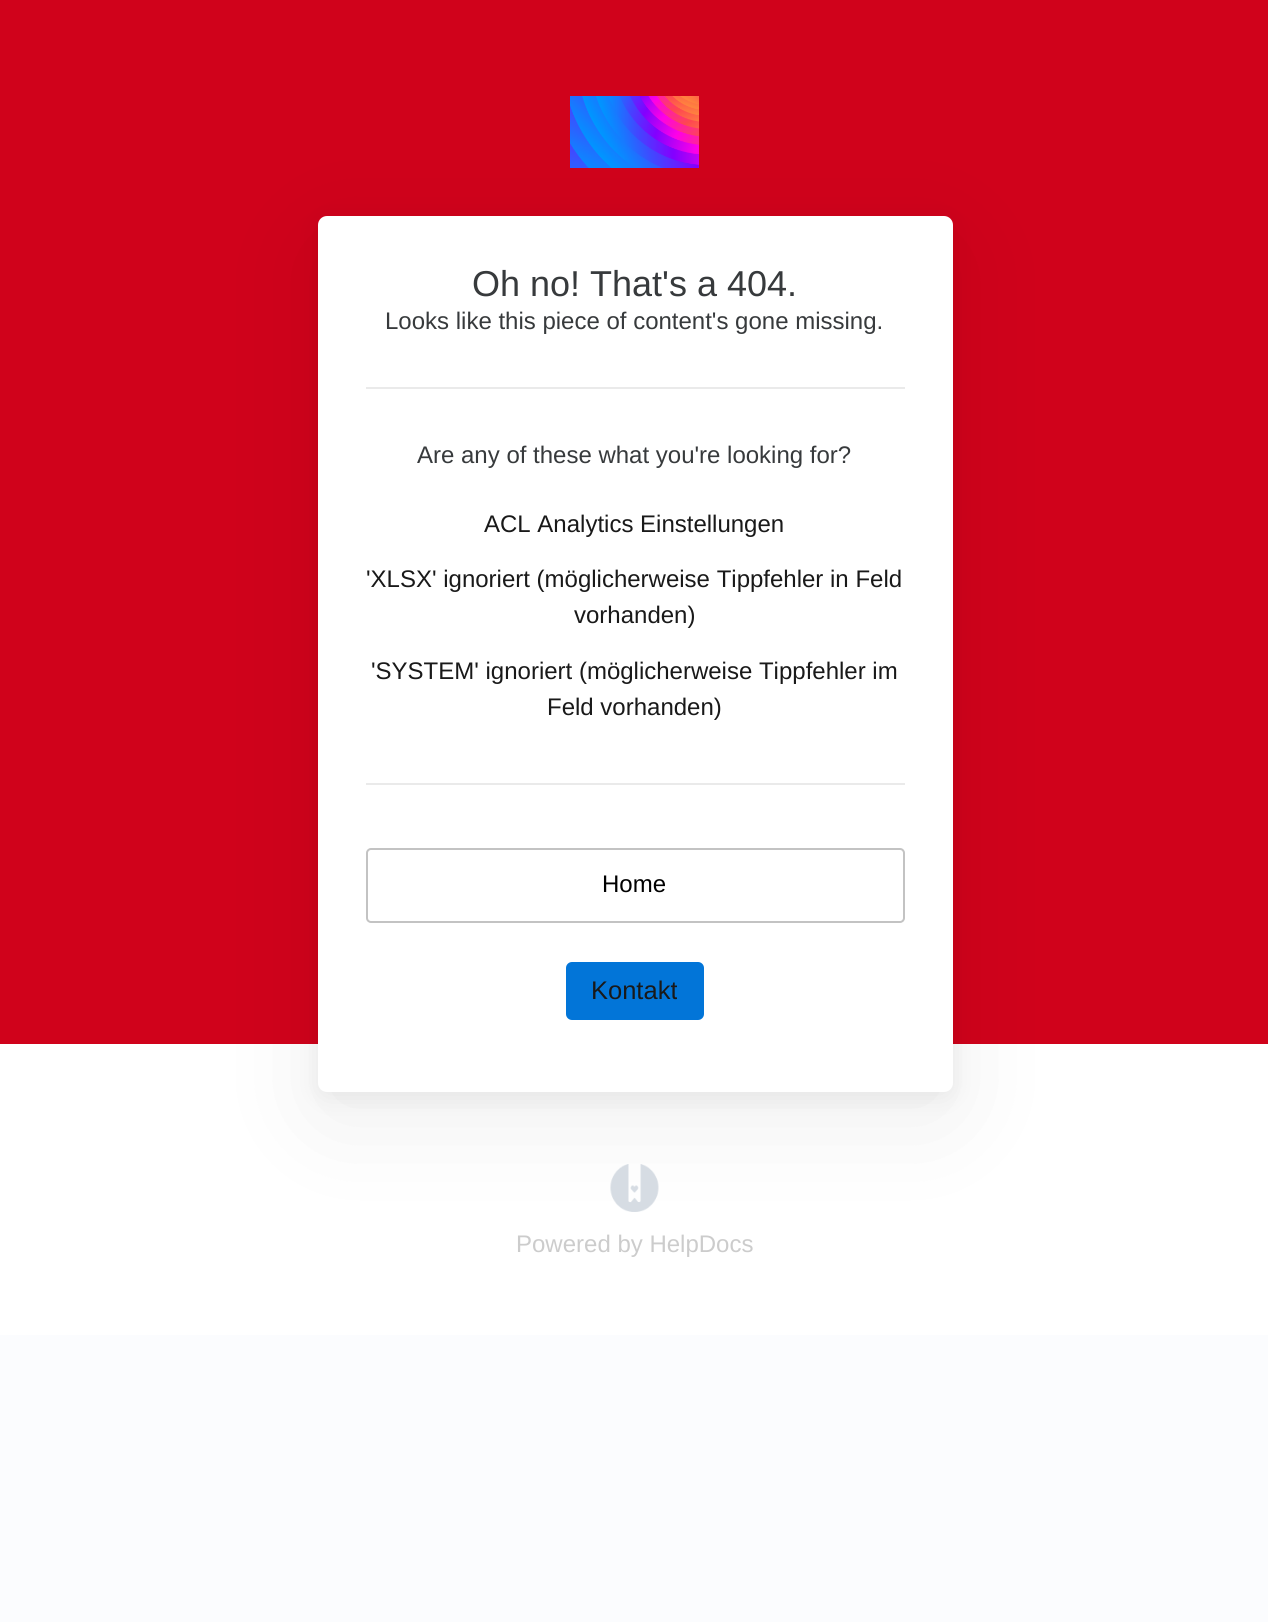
import math
import cairocffi as cairo

surface = cairo.ImageSurface(cairo.FORMAT_RGB24, 1268, 1622)
cr = cairo.Context(surface)
options = cairo.FontOptions()
options.set_hint_metrics(cairo.HINT_METRICS_OFF)
options.set_hint_style(cairo.HINT_STYLE_NONE)
cr.set_font_options(options)
cr.set_miter_limit(4)


def use_color(code):
    cr.set_source_rgb(*(v / 255 for v in bytes.fromhex(code[-6:])))


def round_rect(x, y, w, h, r):
    cr.new_sub_path()
    for i, (u, v) in enumerate([(x + w - r, y + h - r), (x + r, y + h - r), (x + r, y + r), (x + w - r, y + r)]):
        cr.arc(u, v, r, i * math.pi / 2, (i + 1) * math.pi / 2)
    cr.close_path()


def shadow(x, y, w, h, r, blur, alpha):
    cr.push_group_with_content(cairo.CONTENT_ALPHA)
    cr.set_operator(cairo.OPERATOR_SOURCE)
    for i in range(15, -16, -2):
        e = blur * i / 6
        if min(w, h) + 2 * e > 0:
            cr.set_source_rgba(0, 0, 0, alpha * math.erfc((i - 1) / 8.5) / 2)
            round_rect(x - e, y - e, w + 2 * e, h + 2 * e, max(0, min(r + e + blur * .6, min(w, h) / 2 + e)))
            cr.fill()
    cr.mask(cr.pop_group())


def picture(path, x, y, w, h):
    cr.save()
    cr.set_source_surface(cairo.ImageSurface.create_from_png(path), x, y)
    cr.rectangle(x, y, w, h)
    cr.fill()
    cr.restore()


use_color("#fbfcfe")
cr.paint()
use_color("#ffffff")
cr.rectangle(0, 1044, 1268, 291)
cr.fill()
use_color("#d0021b")
cr.rectangle(0, 0, 1268, 1044)
cr.fill()
picture("img1.png", 570, 96, 129, 72)
use_color("#000000")
shadow(318, 242, 635, 876, 9, 55, 0.07)
shadow(318, 222, 635, 876, 9, 12, 0.06)
use_color("#ffffff")
round_rect(318, 216, 635, 876, 9)
cr.fill()
cr.select_font_face("Liberation Sans")
cr.set_font_size(36)
use_color("#373a3c")
cr.move_to(472, 296)
cr.show_text("Oh no! That's a 404.")
cr.set_font_size(24)
cr.move_to(385, 329)
cr.show_text("Looks like this piece of content's gone missing.")
use_color("#eaeaea")
cr.rectangle(366, 387, 539, 2)
cr.fill()
use_color("#373a3c")
cr.move_to(417, 463)
cr.show_text("Are any of these what you're looking for?")
use_color("#191919")
cr.move_to(484, 532)
cr.show_text("ACL Analytics Einstellungen")
cr.move_to(366, 587)
cr.show_text("'XLSX' ignoriert (möglicherweise Tippfehler in Feld")
cr.move_to(574, 623)
cr.show_text("vorhanden)")
cr.move_to(371, 679)
cr.show_text("'SYSTEM' ignoriert (möglicherweise Tippfehler im")
cr.move_to(547, 715)
cr.show_text("Feld vorhanden)")
use_color("#eaeaea")
cr.rectangle(366, 783, 539, 2)
cr.fill()
round_rect(367, 849, 537, 73, 4)
use_color("#c3c3c3")
cr.stroke()
use_color("#000000")
cr.move_to(602, 892)
cr.show_text("Home")
use_color("#0275d8")
round_rect(567, 963, 136, 56, 5)
cr.fill_preserve()
cr.stroke()
cr.set_font_size(25.5)
use_color("#191919")
cr.move_to(591, 999)
cr.show_text("Kontakt")
picture("img2.png", 610, 1164, 49, 48)
cr.set_font_size(24)
use_color("#cccccc")
cr.move_to(516, 1252)
cr.show_text("Powered by HelpDocs")
surface.write_to_png("result.png")
